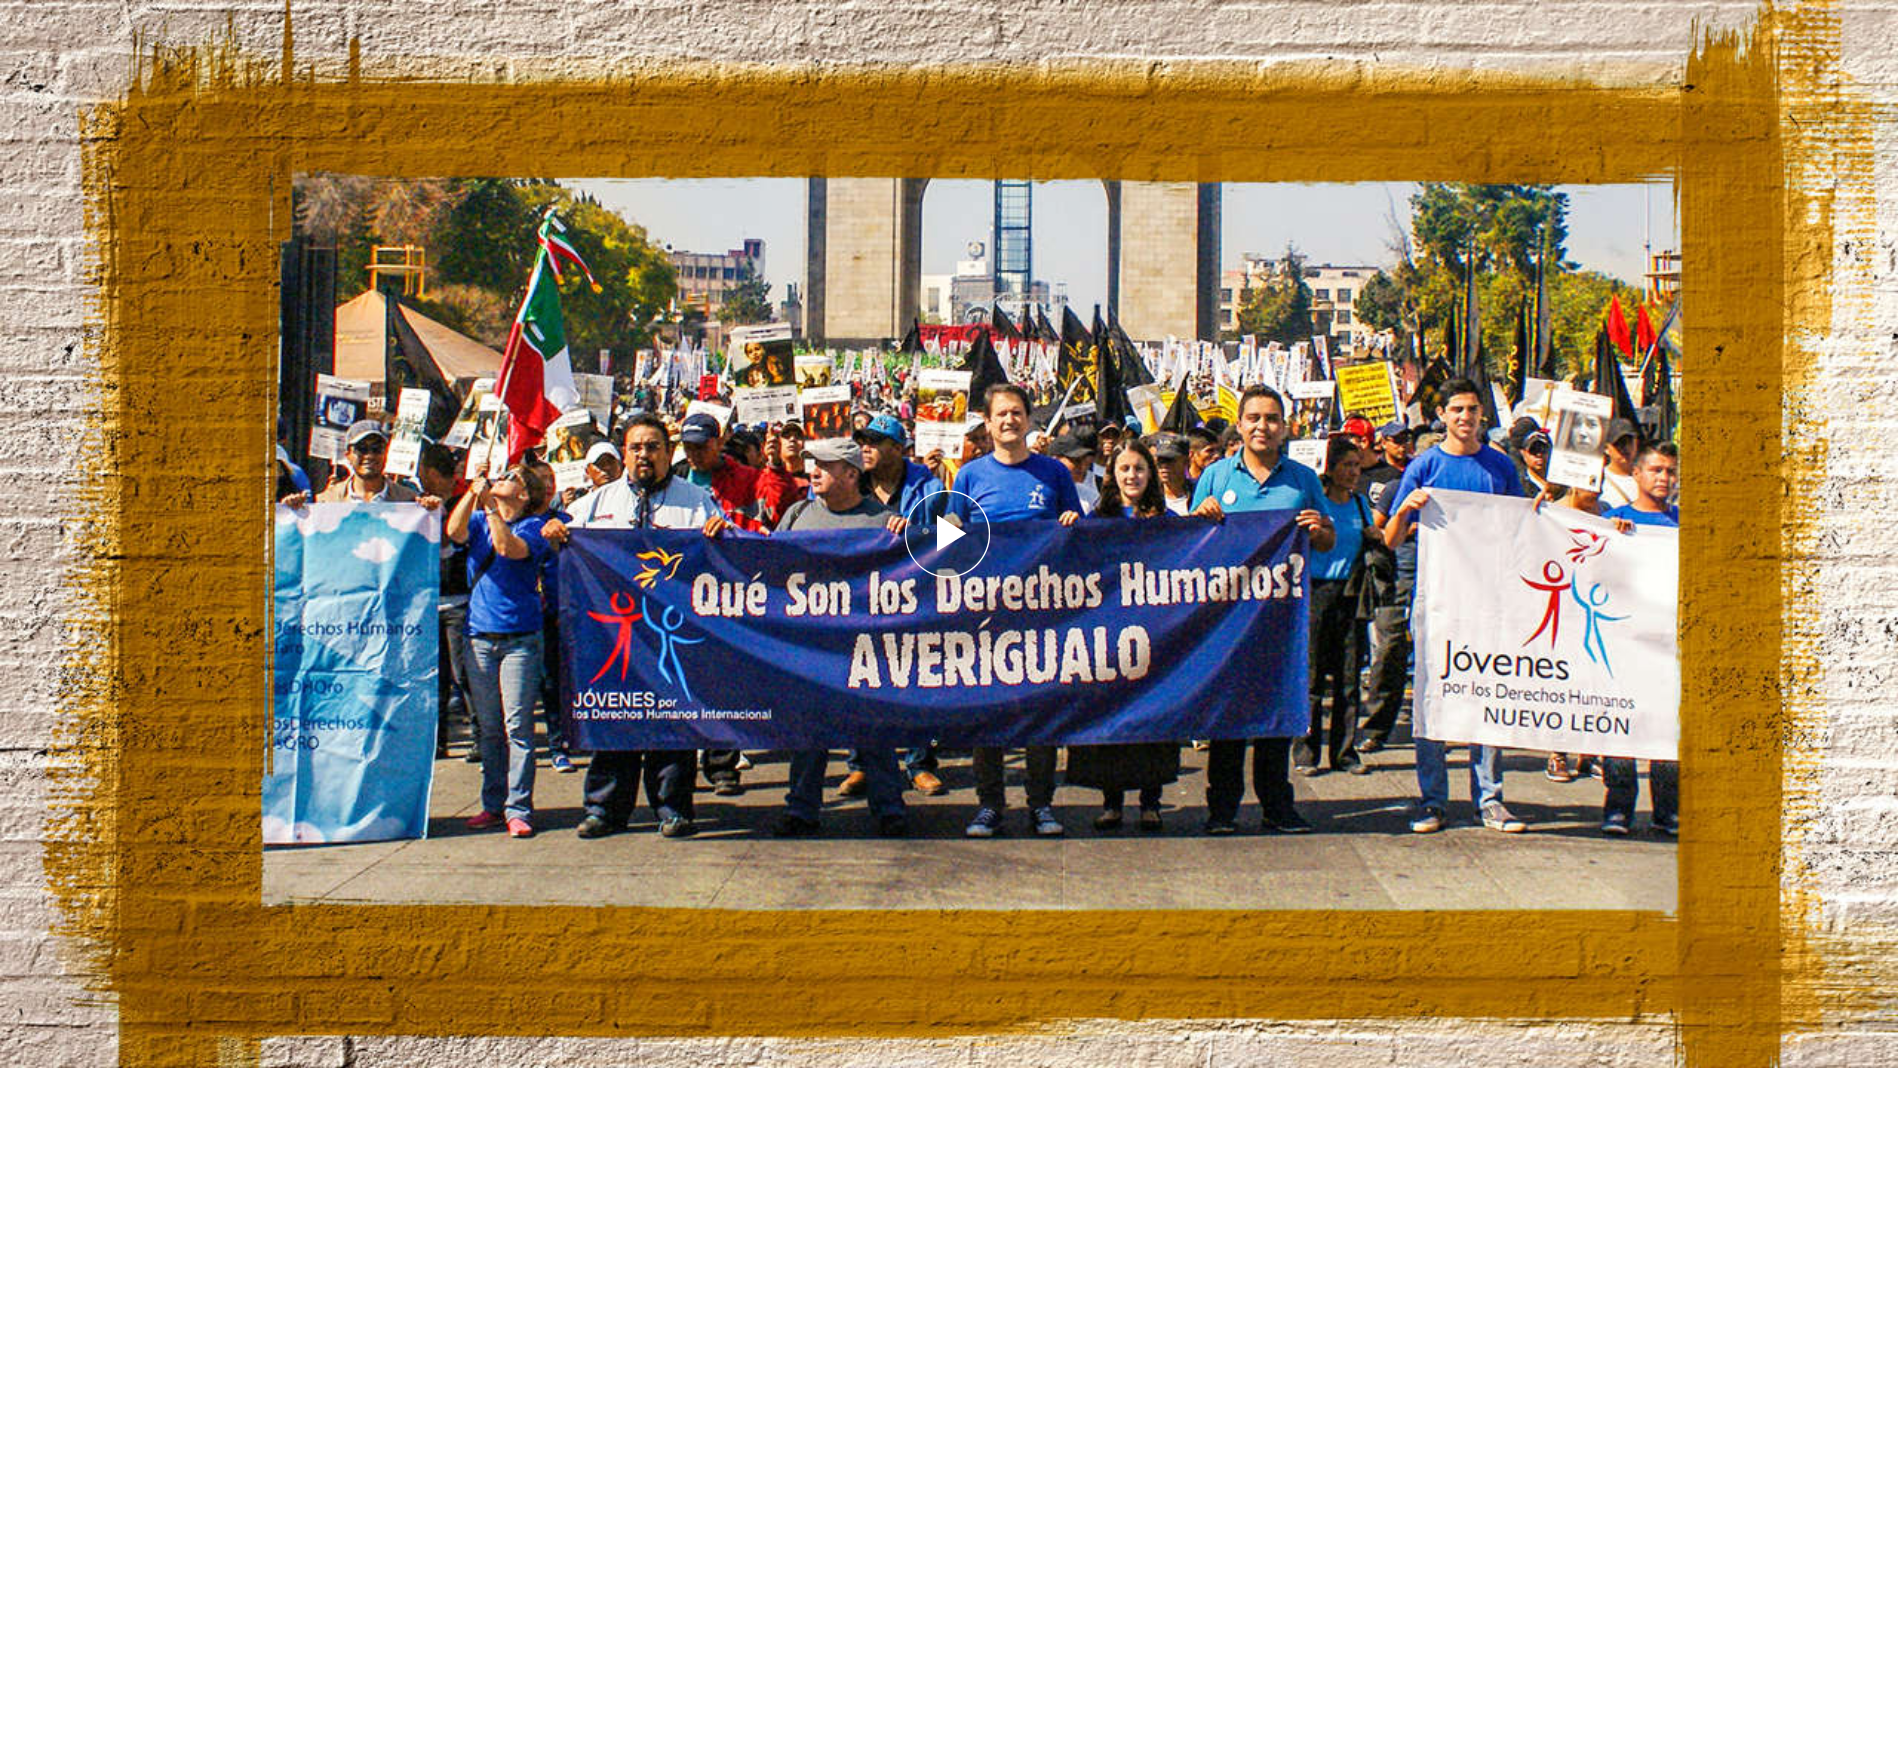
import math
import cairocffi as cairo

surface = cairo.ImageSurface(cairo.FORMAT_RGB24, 1898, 1763)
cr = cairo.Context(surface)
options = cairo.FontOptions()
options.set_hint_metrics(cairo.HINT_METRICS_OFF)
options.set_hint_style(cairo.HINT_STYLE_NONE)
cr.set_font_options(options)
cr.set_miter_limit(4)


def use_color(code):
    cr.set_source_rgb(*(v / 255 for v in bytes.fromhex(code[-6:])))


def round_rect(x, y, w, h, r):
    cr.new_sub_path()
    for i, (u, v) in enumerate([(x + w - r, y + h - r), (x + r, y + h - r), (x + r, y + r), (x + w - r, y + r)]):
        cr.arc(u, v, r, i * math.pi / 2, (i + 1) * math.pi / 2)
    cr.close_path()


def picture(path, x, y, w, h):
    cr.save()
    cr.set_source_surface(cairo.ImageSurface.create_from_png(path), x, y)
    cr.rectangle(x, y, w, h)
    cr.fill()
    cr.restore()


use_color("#ffffff")
cr.paint()
picture("img1.png", 0, 0, 1898, 1068)
cr.set_source_rgba(0.094, 0.196, 0.298, 0.3)
cr.new_path()
cr.move_to(947.5, 491)
cr.curve_to(970.5, 491, 989.5, 510.5, 989.5, 534)
cr.curve_to(989.5, 557.5, 970.5, 577, 947.5, 577)
cr.curve_to(924.5, 577, 905.5, 557.5, 905.5, 534)
cr.curve_to(905.5, 510.5, 924.5, 491, 947.5, 491)
cr.close_path()
cr.fill()
cr.save()
cr.rectangle(905, 490, 85, 88)
cr.clip()
round_rect(905, 490, 88, 88, 44)
cr.clip()
cr.new_path()
cr.move_to(947.5, 491)
cr.curve_to(970.5, 491, 989.5, 510.5, 989.5, 534)
cr.curve_to(989.5, 557.5, 970.5, 577, 947.5, 577)
cr.curve_to(924.5, 577, 905.5, 557.5, 905.5, 534)
cr.curve_to(905.5, 510.5, 924.5, 491, 947.5, 491)
cr.close_path()
use_color("#ffffff")
cr.set_line_width(1.4)
cr.stroke()
cr.restore()
use_color("#ffffff")
cr.new_path()
cr.move_to(966.5, 533.5)
cr.line_to(937, 515)
cr.line_to(937, 551.5)
cr.close_path()
cr.fill()
surface.write_to_png("result.png")
